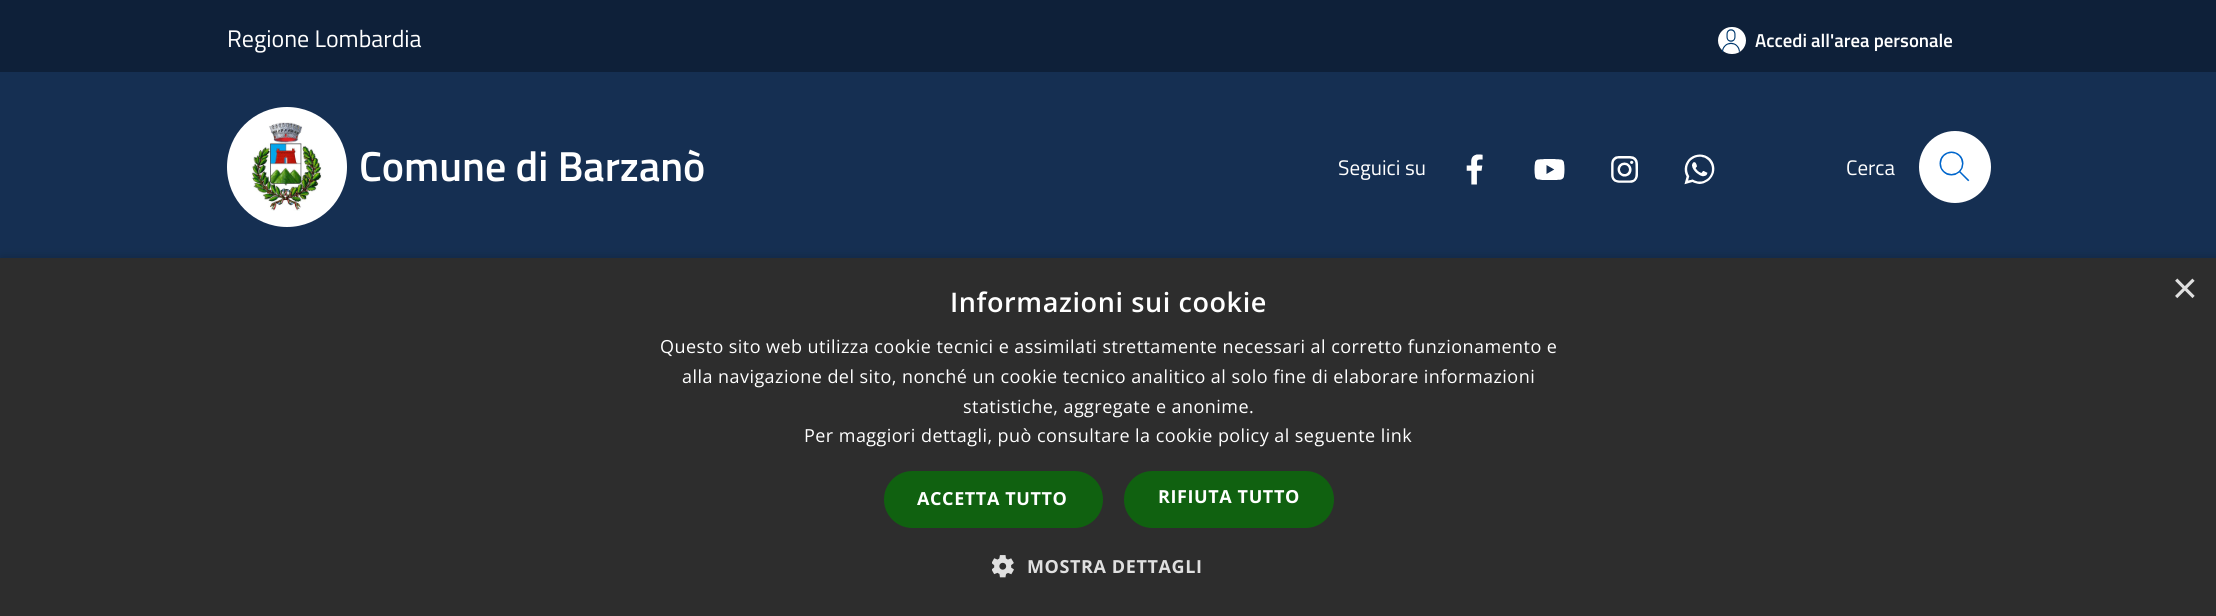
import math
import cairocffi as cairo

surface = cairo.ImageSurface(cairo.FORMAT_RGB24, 2216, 616)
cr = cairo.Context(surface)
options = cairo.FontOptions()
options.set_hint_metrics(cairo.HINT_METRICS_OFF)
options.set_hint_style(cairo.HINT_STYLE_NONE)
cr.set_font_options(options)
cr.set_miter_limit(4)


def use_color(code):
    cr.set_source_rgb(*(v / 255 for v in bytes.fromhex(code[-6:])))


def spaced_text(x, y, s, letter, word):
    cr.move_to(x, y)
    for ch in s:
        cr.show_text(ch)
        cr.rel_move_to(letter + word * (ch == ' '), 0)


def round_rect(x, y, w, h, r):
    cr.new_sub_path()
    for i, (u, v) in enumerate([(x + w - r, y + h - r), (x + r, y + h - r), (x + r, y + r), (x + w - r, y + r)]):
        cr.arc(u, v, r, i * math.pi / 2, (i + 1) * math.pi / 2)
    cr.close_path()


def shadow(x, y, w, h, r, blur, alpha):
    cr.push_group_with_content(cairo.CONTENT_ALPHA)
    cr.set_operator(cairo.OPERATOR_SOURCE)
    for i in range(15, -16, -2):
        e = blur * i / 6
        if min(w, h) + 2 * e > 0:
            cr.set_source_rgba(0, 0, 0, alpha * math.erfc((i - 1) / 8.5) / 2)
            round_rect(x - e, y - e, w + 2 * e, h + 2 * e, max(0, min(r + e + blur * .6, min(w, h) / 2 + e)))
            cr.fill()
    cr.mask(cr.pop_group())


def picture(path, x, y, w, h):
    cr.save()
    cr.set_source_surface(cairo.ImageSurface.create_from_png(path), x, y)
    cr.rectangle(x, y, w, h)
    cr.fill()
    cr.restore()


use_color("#0e2039")
cr.paint()
cr.select_font_face("Titillium Web")
cr.set_font_size(24)
use_color("#ffffff")
cr.move_to(227, 47)
cr.show_text("Regione Lombardia")
round_rect(1718, 27, 28, 27, 13.5)
cr.fill()
picture("img1.png", 1722, 29, 18, 23)
cr.select_font_face("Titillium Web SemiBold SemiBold")
cr.set_font_size(18.75)
cr.move_to(1755, 47)
cr.show_text("Accedi all'area personale")
use_color("#152f52")
cr.rectangle(0, 72, 2216, 186)
cr.fill()
use_color("#ffffff")
cr.arc(287, 167, 59, 0, 2 * math.pi)
cr.fill_preserve()
cr.stroke()
picture("img2.png", 251, 122, 71, 89)
cr.set_font_size(42)
cr.move_to(359, 181)
cr.show_text("Comune di Barzanò")
cr.select_font_face("Titillium Web")
cr.set_font_size(21)
cr.move_to(1338, 175)
cr.show_text("Seguici su")
picture("img3.png", 1466, 154, 17, 31)
picture("img4.png", 1534, 159, 31, 21)
picture("img5.png", 1611, 156, 27, 27)
picture("img6.png", 1684, 154, 31, 31)
cr.move_to(1846, 175)
cr.show_text("Cerca")
cr.new_path()
cr.arc(1955, 167, 36, 0, 2 * math.pi)
cr.fill()
picture("img7.png", 1939, 151, 31, 31)
use_color("#000000")
shadow(2, 261, 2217, 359, 0, 6, 0.35)
use_color("#2d2d2d")
cr.rectangle(0, 258, 2216, 358)
cr.fill()
cr.select_font_face("Liberation Sans")
cr.set_font_size(44)
use_color("#e0e0e0")
cr.move_to(2172, 303)
cr.show_text("×")
cr.select_font_face("Open Sans SemiBold")
cr.set_font_size(27)
use_color("#ffffff")
spaced_text(950, 312, "Informazioni sui cookie", 0.6, 0)
cr.select_font_face("Open Sans")
cr.set_font_size(18)
spaced_text(660, 353, "Questo sito web utilizza cookie tecnici e assimilati strettamente necessari al corretto funzionamento e", 0.45, 0)
spaced_text(682, 383, "alla navigazione del sito, nonché un cookie tecnico analitico al solo fine di elaborare informazioni", 0.45, 0)
spaced_text(963, 413, "statistiche, aggregate e anonime.", 0.45, 0)
spaced_text(804, 442, "Per maggiori dettagli, può consultare la cookie policy al seguente link", 0.45, 0)
use_color("#106110")
round_rect(884, 471, 219, 57, 28.5)
cr.fill()
cr.select_font_face("Open Sans", cairo.FONT_SLANT_NORMAL, cairo.FONT_WEIGHT_BOLD)
use_color("#ffffff")
spaced_text(917, 505, "ACCETTA TUTTO", 0.6, 0)
use_color("#106110")
round_rect(1124, 471, 210, 57, 28.5)
cr.fill()
use_color("#ffffff")
spaced_text(1158, 503, "RIFIUTA TUTTO", 0.6, 0)
picture("img8.png", 992, 555, 22, 23)
use_color("#e0e0e0")
spaced_text(1027, 573, "MOSTRA DETTAGLI", 0.6, 0)
surface.write_to_png("result.png")
